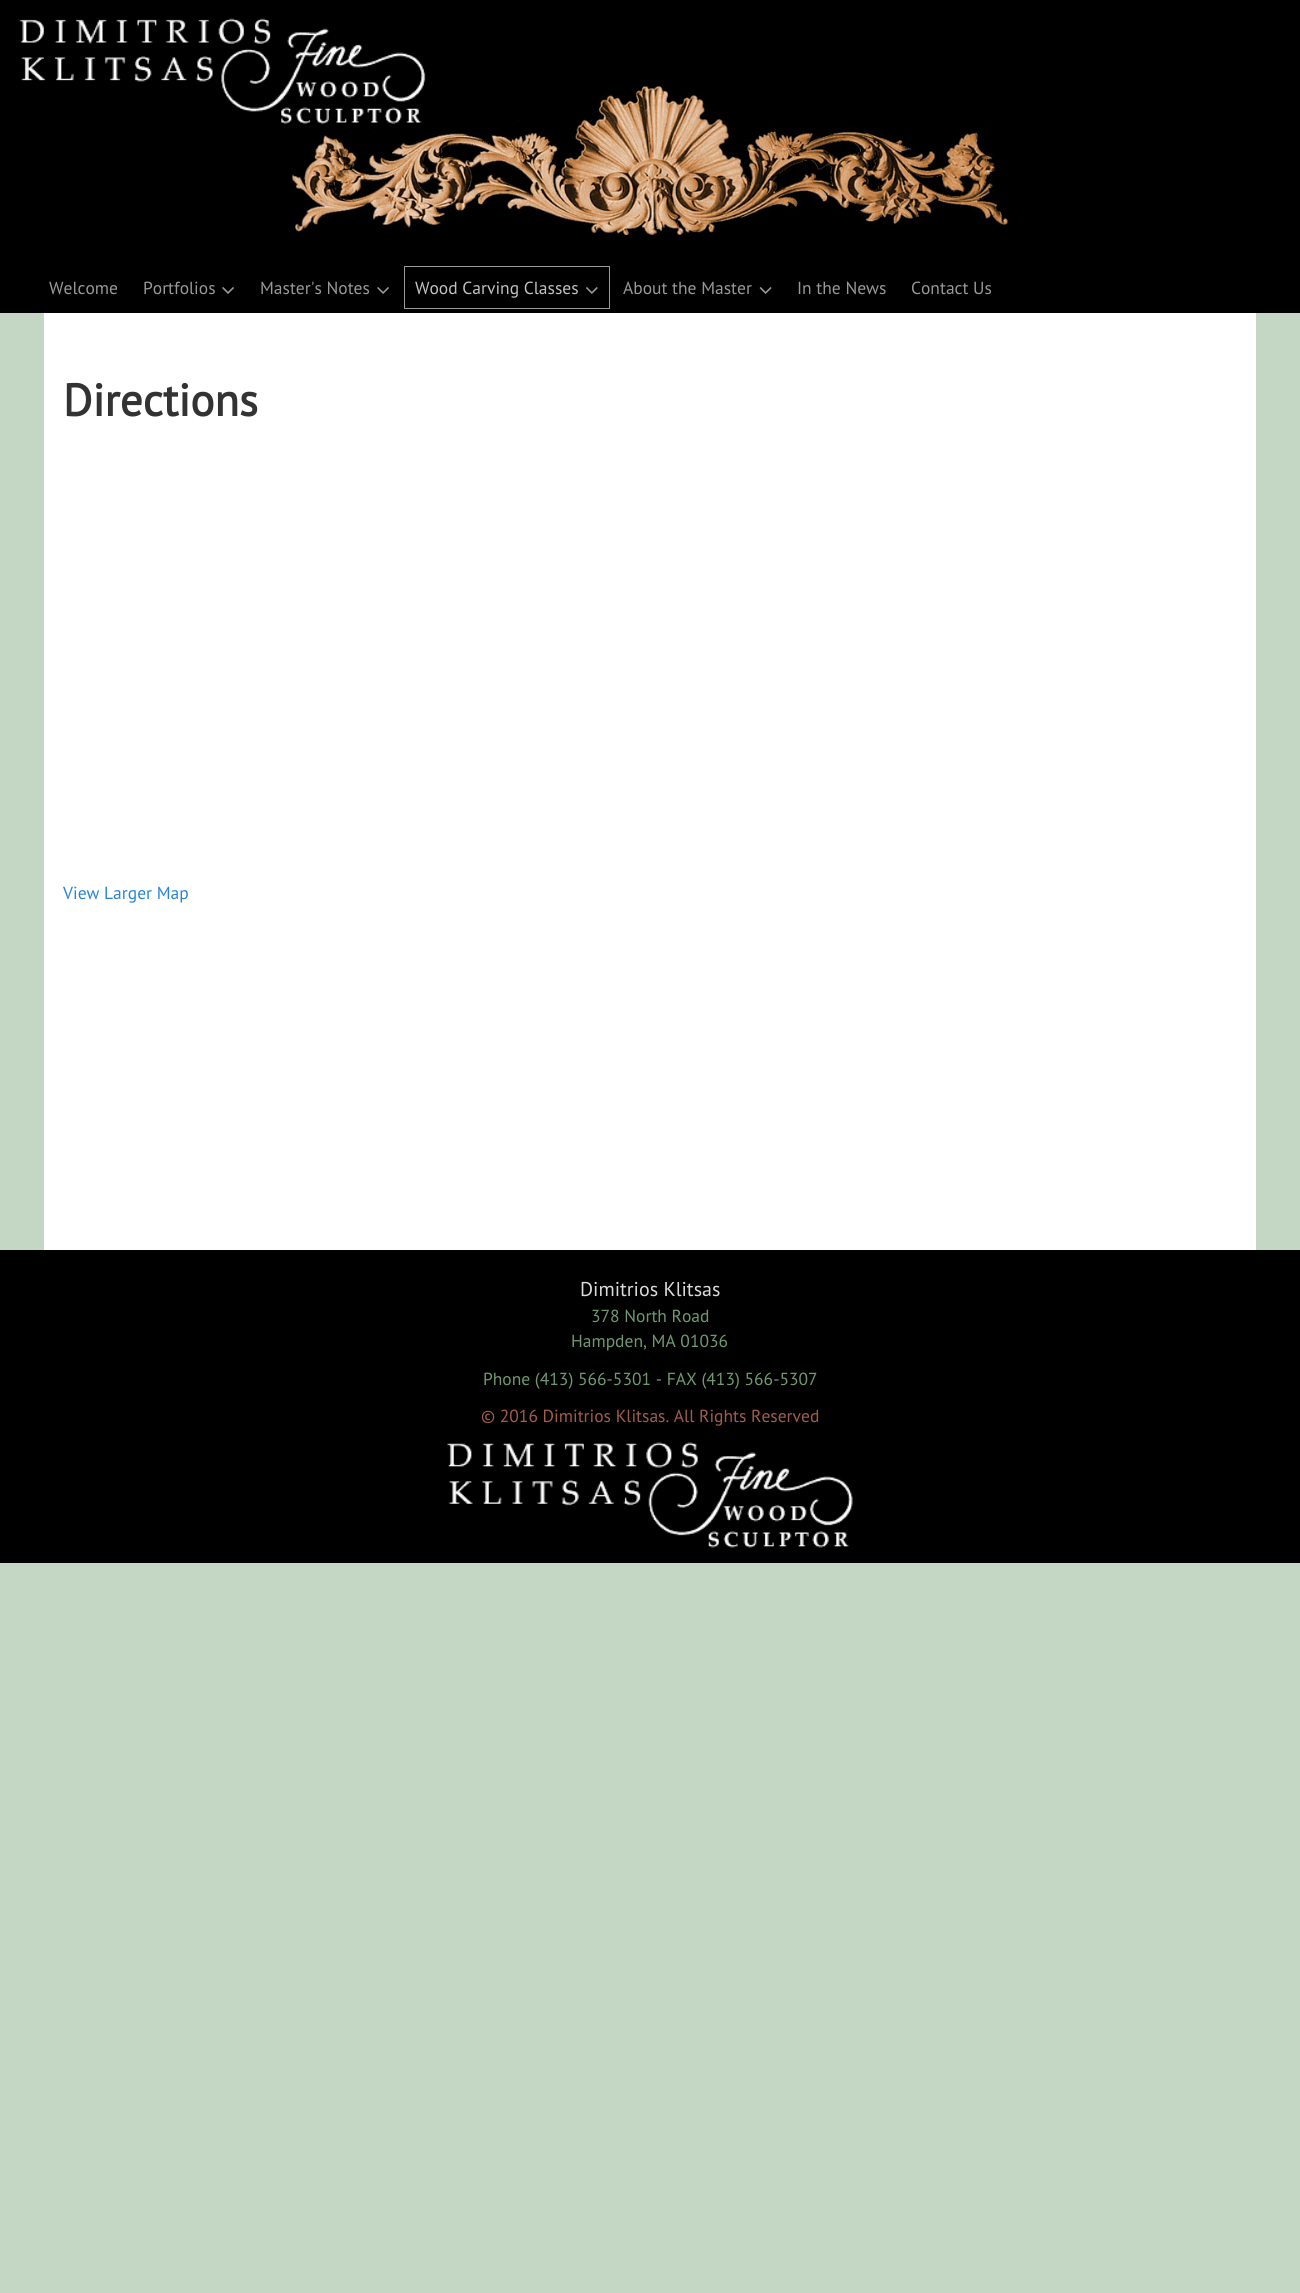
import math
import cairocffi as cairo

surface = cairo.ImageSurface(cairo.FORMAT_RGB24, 1300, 2293)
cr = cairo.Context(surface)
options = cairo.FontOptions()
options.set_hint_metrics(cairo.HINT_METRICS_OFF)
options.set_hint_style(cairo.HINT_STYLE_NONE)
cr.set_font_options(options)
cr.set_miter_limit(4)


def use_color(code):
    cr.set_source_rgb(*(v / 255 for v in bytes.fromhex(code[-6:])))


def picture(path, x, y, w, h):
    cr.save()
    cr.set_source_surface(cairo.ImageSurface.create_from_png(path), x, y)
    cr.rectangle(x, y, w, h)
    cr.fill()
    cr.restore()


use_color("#c3d7c4")
cr.paint()
use_color("#000000")
cr.rectangle(0, 0, 1300, 313)
cr.fill()
picture("img1.png", 292, 86, 716, 149)
picture("img2.png", 19, 18, 407, 106)
cr.select_font_face("PT Sans")
cr.set_font_size(17.5)
use_color("#999999")
cr.move_to(49, 294)
cr.show_text("Welcome")
cr.move_to(143, 294)
cr.show_text("Portfolios")
picture("img3.png", 222, 287, 12, 7)
cr.move_to(260, 294)
cr.show_text("Master's Notes")
picture("img3.png", 377, 287, 12, 7)
cr.rectangle(404.5, 266.5, 205, 42)
cr.set_line_width(1)
cr.stroke()
use_color("#c2c2c2")
cr.move_to(415, 294)
cr.show_text("Wood Carving Classes")
picture("img4.png", 586, 287, 12, 7)
use_color("#999999")
cr.move_to(623, 294)
cr.show_text("About the Master")
picture("img5.png", 759, 287, 13, 7)
cr.move_to(797, 294)
cr.show_text("In the News")
cr.move_to(911, 294)
cr.show_text("Contact Us")
use_color("#ffffff")
cr.rectangle(44, 313, 1212, 937)
cr.fill()
cr.select_font_face("PT Sans", cairo.FONT_SLANT_NORMAL, cairo.FONT_WEIGHT_BOLD)
cr.set_font_size(45)
use_color("#333333")
cr.move_to(63, 416)
cr.show_text("Directions")
cr.select_font_face("PT Sans")
cr.set_font_size(17.5)
use_color("#2985d3")
cr.move_to(63, 899)
cr.show_text("View Larger Map")
use_color("#000000")
cr.rectangle(0, 1250, 1300, 313)
cr.fill()
cr.set_font_size(20)
use_color("#dbdbdb")
cr.move_to(580, 1296)
cr.show_text("Dimitrios Klitsas")
cr.set_font_size(17.5)
use_color("#6f9a71")
cr.move_to(591, 1322)
cr.show_text("378 North Road")
cr.move_to(571, 1347)
cr.show_text("Hampden, MA 01036")
cr.move_to(483, 1385)
cr.show_text("Phone (413) 566-5301 - FAX (413) 566-5307")
use_color("#a35d4a")
cr.move_to(481, 1422)
cr.show_text("© 2016 Dimitrios Klitsas. All Rights Reserved")
picture("img6.png", 447, 1442, 406, 106)
surface.write_to_png("result.png")
